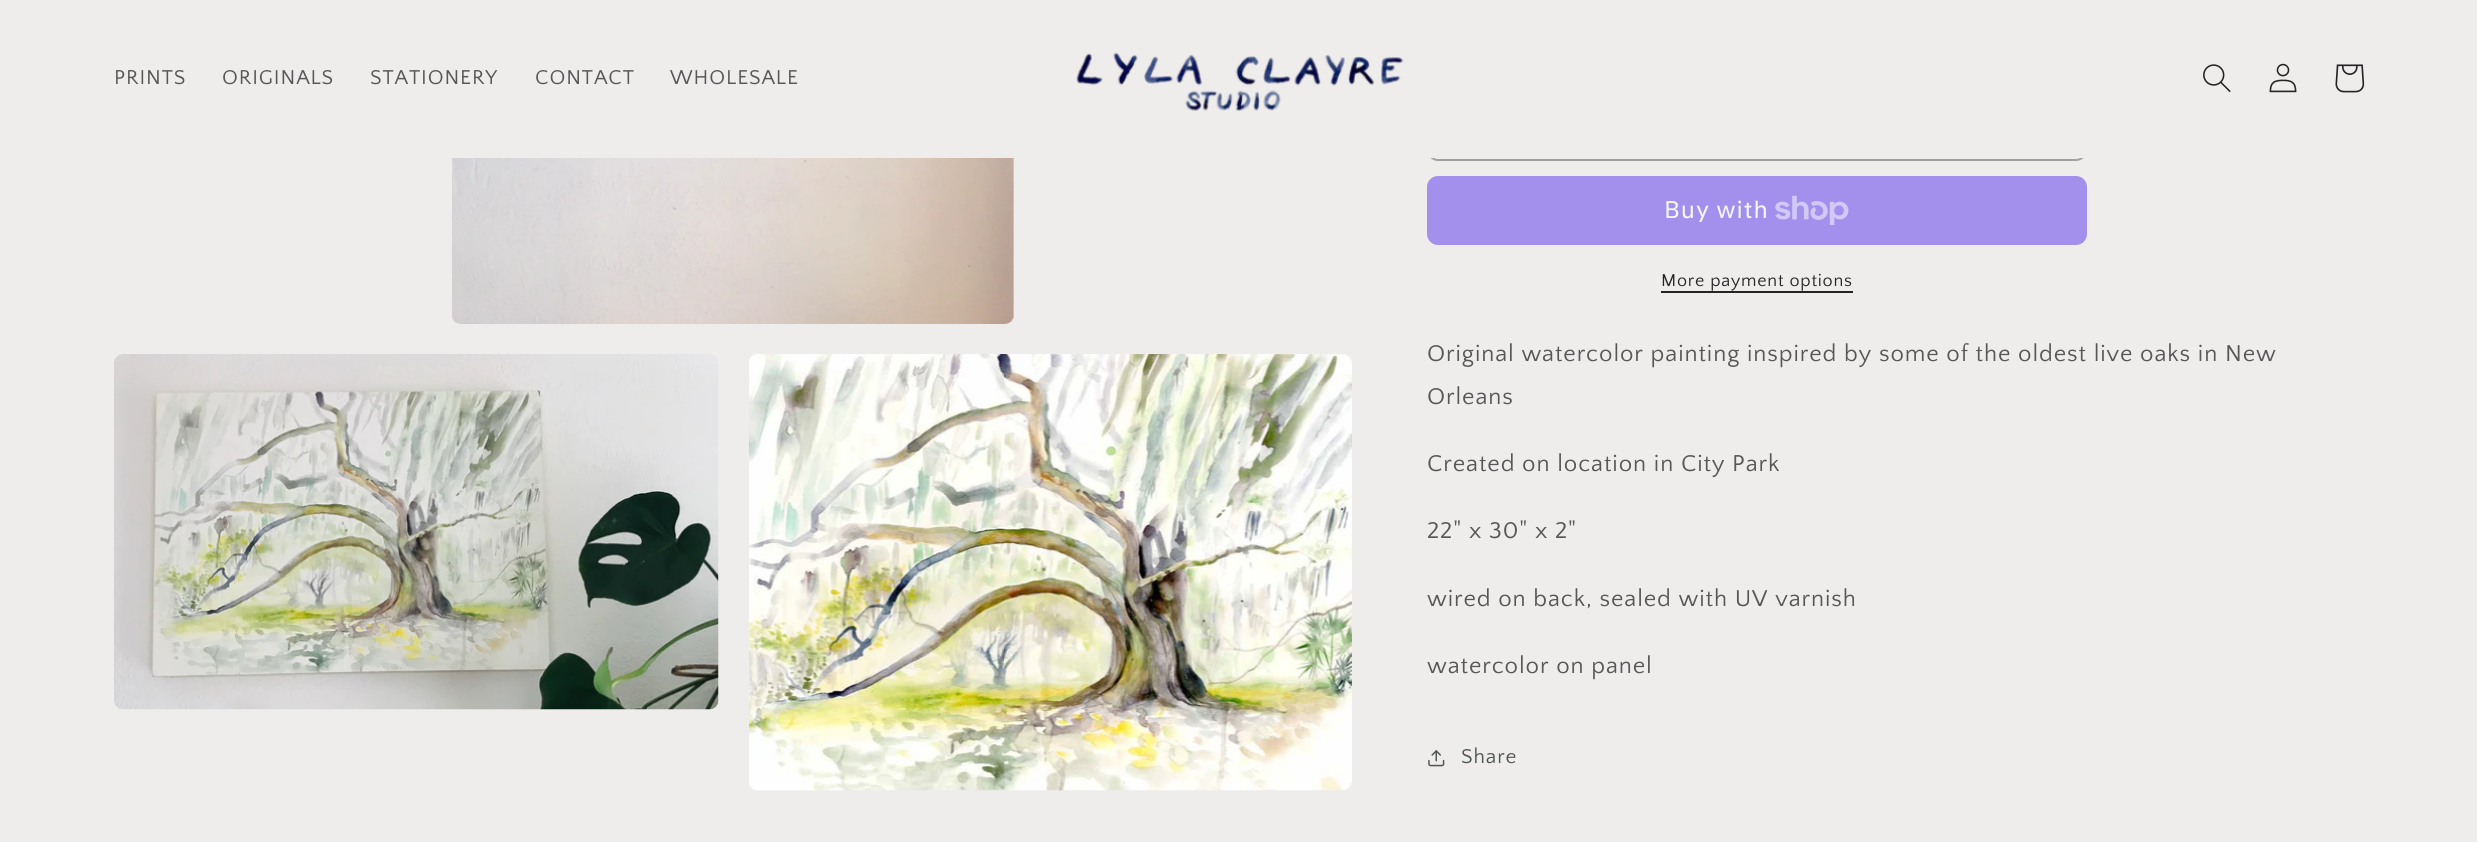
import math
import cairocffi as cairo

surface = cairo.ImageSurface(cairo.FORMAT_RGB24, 2477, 842)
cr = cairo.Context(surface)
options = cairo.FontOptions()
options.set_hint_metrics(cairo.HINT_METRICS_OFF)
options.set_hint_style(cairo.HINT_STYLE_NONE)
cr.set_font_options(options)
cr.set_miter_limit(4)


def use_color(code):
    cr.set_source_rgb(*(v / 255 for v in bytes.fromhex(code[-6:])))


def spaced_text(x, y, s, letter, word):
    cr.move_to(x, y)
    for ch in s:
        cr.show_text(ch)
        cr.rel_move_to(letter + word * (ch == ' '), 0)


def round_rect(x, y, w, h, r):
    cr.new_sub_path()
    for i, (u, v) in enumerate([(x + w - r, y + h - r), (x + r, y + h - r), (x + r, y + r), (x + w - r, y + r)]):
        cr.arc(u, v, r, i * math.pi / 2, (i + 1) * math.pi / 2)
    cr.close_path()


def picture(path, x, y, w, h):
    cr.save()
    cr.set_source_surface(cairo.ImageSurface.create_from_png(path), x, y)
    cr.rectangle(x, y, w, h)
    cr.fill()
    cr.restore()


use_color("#efecec")
cr.paint()
round_rect(1428, 91, 658, 69, 10)
use_color("#a0a1a1")
cr.stroke()
use_color("#efecec")
cr.rectangle(1427, 90, 660, 68)
cr.fill()
cr.select_font_face("Quattrocento Sans")
cr.set_font_size(21)
use_color("#585757")
spaced_text(114, 84, "PRINTS", 0.9, 0)
spaced_text(222, 84, "ORIGINALS", 0.9, 0)
spaced_text(370, 84, "STATIONERY", 0.9, 0)
spaced_text(535, 84, "CONTACT", 0.9, 0)
spaced_text(670, 84, "WHOLESALE", 0.9, 0)
picture("img1.png", 1076, 52, 328, 59)
picture("img2.png", 2203, 64, 28, 28)
picture("img3.png", 2269, 63, 28, 30)
picture("img4.png", 2335, 64, 30, 29)
picture("img5.png", 452, 158, 562, 166)
picture("img6.png", 114, 354, 605, 356)
picture("img7.png", 749, 354, 603, 437)
use_color("#a290ec")
round_rect(1427, 176, 660, 69, 11)
cr.fill()
cr.select_font_face("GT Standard")
cr.set_font_size(24)
use_color("#f7f6f6")
spaced_text(1664, 218, "Buy with", 0.9, 0)
picture("img8.png", 1775, 195, 74, 30)
cr.select_font_face("Quattrocento Sans")
cr.set_font_size(18)
use_color("#252525")
spaced_text(1661, 286, "More payment options", 0.75, 0)
cr.rectangle(1661, 291, 192, 2)
cr.fill()
cr.set_font_size(24)
use_color("#585757")
spaced_text(1427, 361, "Original watercolor painting inspired by some of the oldest live oaks in New", 0.9, 0)
spaced_text(1427, 404, "Orleans", 0.9, 0)
spaced_text(1427, 471, "Created on location in City Park", 0.9, 0)
spaced_text(1427, 538, "22\" x 30\" x 2\"", 0.9, 0)
spaced_text(1427, 606, "wired on back, sealed with UV varnish", 0.9, 0)
spaced_text(1427, 673, "watercolor on panel", 0.9, 0)
picture("img9.png", 1428, 750, 17, 17)
cr.set_font_size(21)
use_color("#505655")
spaced_text(1461, 763, "Share", 0.9, 0)
surface.write_to_png("result.png")
